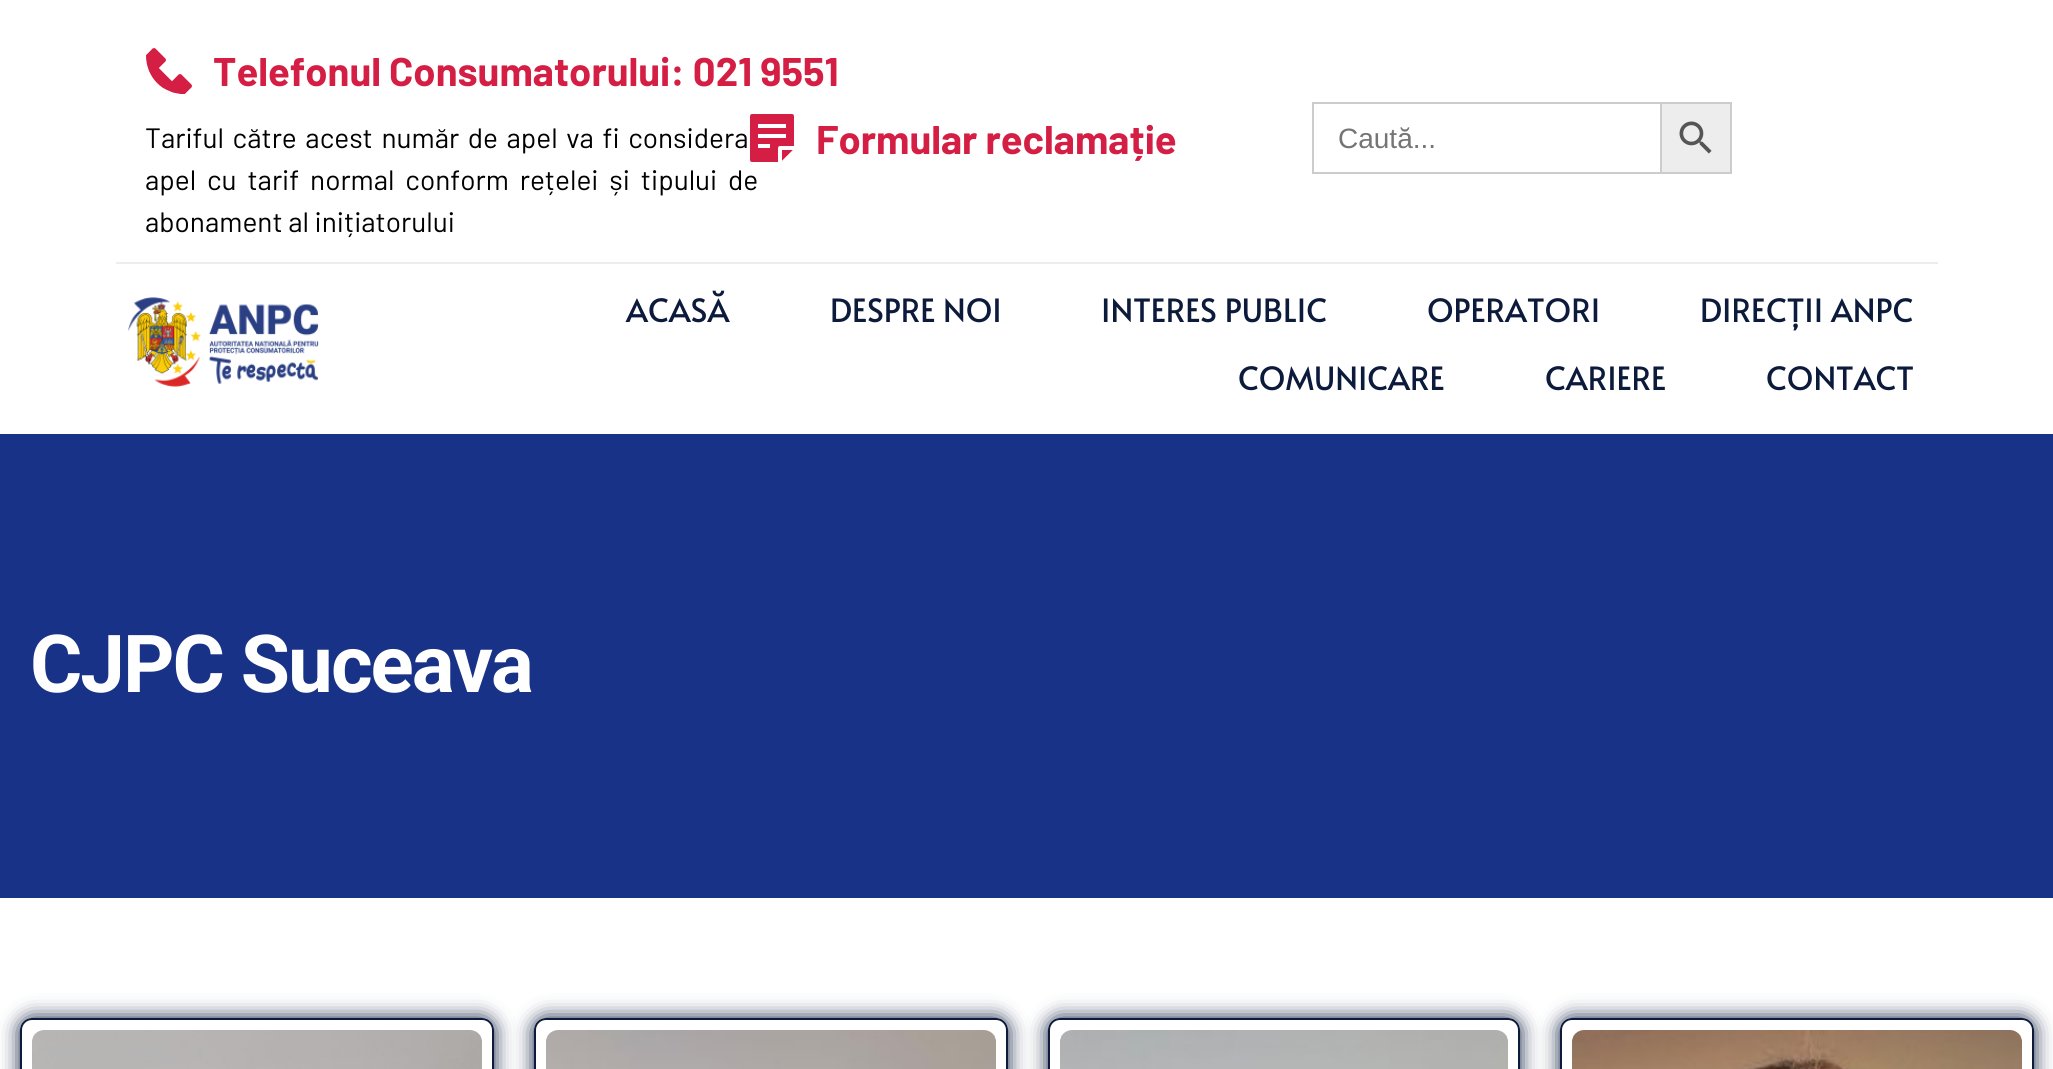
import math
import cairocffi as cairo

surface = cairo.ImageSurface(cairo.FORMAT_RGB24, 2053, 1069)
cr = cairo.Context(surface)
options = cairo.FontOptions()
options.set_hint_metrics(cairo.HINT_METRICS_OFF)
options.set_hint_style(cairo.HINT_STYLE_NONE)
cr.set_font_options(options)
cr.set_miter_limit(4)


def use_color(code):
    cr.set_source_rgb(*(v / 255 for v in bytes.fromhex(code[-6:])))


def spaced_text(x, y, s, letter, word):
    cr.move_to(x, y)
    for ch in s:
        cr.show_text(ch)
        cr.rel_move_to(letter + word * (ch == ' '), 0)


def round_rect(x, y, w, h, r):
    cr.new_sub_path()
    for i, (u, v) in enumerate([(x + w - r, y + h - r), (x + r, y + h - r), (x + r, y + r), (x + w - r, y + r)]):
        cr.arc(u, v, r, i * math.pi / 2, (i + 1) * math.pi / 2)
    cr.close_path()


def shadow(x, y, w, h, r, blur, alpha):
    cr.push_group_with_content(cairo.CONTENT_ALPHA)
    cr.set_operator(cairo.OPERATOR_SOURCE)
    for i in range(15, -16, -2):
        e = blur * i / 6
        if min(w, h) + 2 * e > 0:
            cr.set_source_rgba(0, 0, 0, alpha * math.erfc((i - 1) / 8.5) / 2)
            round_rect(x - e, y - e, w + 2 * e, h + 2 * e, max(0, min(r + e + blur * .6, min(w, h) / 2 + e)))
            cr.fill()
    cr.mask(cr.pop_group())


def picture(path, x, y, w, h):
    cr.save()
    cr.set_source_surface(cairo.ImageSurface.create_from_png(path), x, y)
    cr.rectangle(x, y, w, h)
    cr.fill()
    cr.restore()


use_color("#ffffff")
cr.paint()
picture("img1.png", 146, 48, 46, 46)
cr.select_font_face("Barlow", cairo.FONT_SLANT_NORMAL, cairo.FONT_WEIGHT_BOLD)
cr.set_font_size(40)
use_color("#d41e44")
cr.move_to(213, 86)
cr.show_text("Telefonul Consumatorului: 021 9551")
cr.select_font_face("Barlow")
cr.set_font_size(28)
use_color("#000000")
spaced_text(145, 148, "Tariful către acest număr de apel va fi considera", 0, 3)
spaced_text(145, 190, "apel cu tarif normal conform rețelei și tipului de", 0, 5.25)
cr.move_to(145, 232)
cr.show_text("abonament al inițiatorului")
picture("img2.png", 750, 114, 44, 48)
cr.select_font_face("Barlow", cairo.FONT_SLANT_NORMAL, cairo.FONT_WEIGHT_BOLD)
cr.set_font_size(40)
use_color("#d41e44")
cr.move_to(816, 154)
cr.show_text("Formular reclamație")
use_color("#cccccc")
cr.rectangle(1312, 102, 348, 2)
cr.fill()
cr.rectangle(1312, 172, 348, 2)
cr.fill()
cr.rectangle(1312, 102, 2, 72)
cr.fill()
cr.select_font_face("Liberation Sans")
cr.set_font_size(28)
use_color("#757575")
cr.move_to(1338, 148)
cr.show_text("Caută...")
use_color("#ededed")
cr.rectangle(1661, 103, 70, 70)
cr.fill_preserve()
use_color("#cccccc")
cr.stroke()
picture("img3.png", 1679, 121, 33, 33)
use_color("#ededee")
cr.rectangle(116, 262, 1822, 2)
cr.fill()
picture("img4.png", 128, 297, 191, 90)
cr.select_font_face("Alata")
cr.set_font_size(32)
use_color("#0c1a3c")
cr.move_to(626, 322)
cr.show_text("ACASĂ")
cr.move_to(830, 322)
cr.show_text("DESPRE NOI")
cr.move_to(1101, 322)
cr.show_text("INTERES PUBLIC")
cr.move_to(1427, 322)
cr.show_text("OPERATORI")
cr.move_to(1700, 322)
cr.show_text("DIRECȚII ANPC")
cr.move_to(1238, 390)
cr.show_text("COMUNICARE")
cr.move_to(1545, 390)
cr.show_text("CARIERE")
cr.move_to(1766, 390)
cr.show_text("CONTACT")
use_color("#173287")
cr.rectangle(0, 434, 2053, 464)
cr.fill()
cr.select_font_face("Roboto", cairo.FONT_SLANT_NORMAL, cairo.FONT_WEIGHT_BOLD)
cr.set_font_size(80)
use_color("#ffffff")
spaced_text(30, 692, "CJPC Suceava", -2, 0)
cr.save()
cr.set_fill_rule(cairo.FILL_RULE_EVEN_ODD)
cr.new_path()
cr.move_to(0, 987)
cr.line_to(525, 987)
cr.line_to(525, 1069)
cr.line_to(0, 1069)
cr.close_path()
cr.move_to(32, 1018)
cr.line_to(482, 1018)
cr.curve_to(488.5, 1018, 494, 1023.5, 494, 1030)
cr.line_to(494, 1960)
cr.curve_to(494, 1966.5, 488.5, 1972, 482, 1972)
cr.line_to(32, 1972)
cr.curve_to(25.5, 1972, 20, 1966.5, 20, 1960)
cr.line_to(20, 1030)
cr.curve_to(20, 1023.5, 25.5, 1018, 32, 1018)
cr.close_path()
cr.clip()
use_color("#0c1a3c")
shadow(20, 1018, 474, 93, 12, 10, 1)
cr.restore()
round_rect(21, 1019, 472, 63, 11)
use_color("#0c1a3c")
cr.stroke()
picture("img5.png", 32, 1030, 450, 39)
cr.save()
cr.set_fill_rule(cairo.FILL_RULE_EVEN_ODD)
cr.new_path()
cr.move_to(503, 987)
cr.line_to(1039, 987)
cr.line_to(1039, 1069)
cr.line_to(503, 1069)
cr.close_path()
cr.move_to(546, 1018)
cr.line_to(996, 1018)
cr.curve_to(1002.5, 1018, 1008, 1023.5, 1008, 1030)
cr.line_to(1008, 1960)
cr.curve_to(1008, 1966.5, 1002.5, 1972, 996, 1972)
cr.line_to(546, 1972)
cr.curve_to(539.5, 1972, 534, 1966.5, 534, 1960)
cr.line_to(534, 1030)
cr.curve_to(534, 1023.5, 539.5, 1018, 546, 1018)
cr.close_path()
cr.clip()
use_color("#0c1a3c")
shadow(534, 1018, 474, 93, 12, 10, 1)
cr.restore()
round_rect(535, 1019, 472, 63, 11)
cr.stroke()
picture("img6.png", 546, 1030, 450, 39)
cr.save()
cr.set_fill_rule(cairo.FILL_RULE_EVEN_ODD)
cr.new_path()
cr.move_to(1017, 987)
cr.line_to(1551, 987)
cr.line_to(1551, 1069)
cr.line_to(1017, 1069)
cr.close_path()
cr.move_to(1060, 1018)
cr.line_to(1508, 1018)
cr.curve_to(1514.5, 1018, 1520, 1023.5, 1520, 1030)
cr.line_to(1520, 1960)
cr.curve_to(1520, 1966.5, 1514.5, 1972, 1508, 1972)
cr.line_to(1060, 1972)
cr.curve_to(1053.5, 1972, 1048, 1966.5, 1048, 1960)
cr.line_to(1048, 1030)
cr.curve_to(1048, 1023.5, 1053.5, 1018, 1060, 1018)
cr.close_path()
cr.clip()
use_color("#0c1a3c")
shadow(1048, 1018, 472, 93, 12, 10, 1)
cr.restore()
round_rect(1049, 1019, 470, 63, 11)
cr.stroke()
picture("img7.png", 1060, 1030, 448, 39)
cr.save()
cr.set_fill_rule(cairo.FILL_RULE_EVEN_ODD)
cr.new_path()
cr.move_to(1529, 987)
cr.line_to(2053, 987)
cr.line_to(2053, 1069)
cr.line_to(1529, 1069)
cr.close_path()
cr.move_to(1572, 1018)
cr.line_to(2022, 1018)
cr.curve_to(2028.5, 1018, 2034, 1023.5, 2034, 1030)
cr.line_to(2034, 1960)
cr.curve_to(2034, 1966.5, 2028.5, 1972, 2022, 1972)
cr.line_to(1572, 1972)
cr.curve_to(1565.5, 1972, 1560, 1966.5, 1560, 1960)
cr.line_to(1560, 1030)
cr.curve_to(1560, 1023.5, 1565.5, 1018, 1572, 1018)
cr.close_path()
cr.clip()
use_color("#0c1a3c")
shadow(1560, 1018, 474, 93, 12, 10, 1)
cr.restore()
round_rect(1561, 1019, 472, 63, 11)
cr.stroke()
picture("img8.png", 1572, 1030, 450, 39)
surface.write_to_png("result.png")
